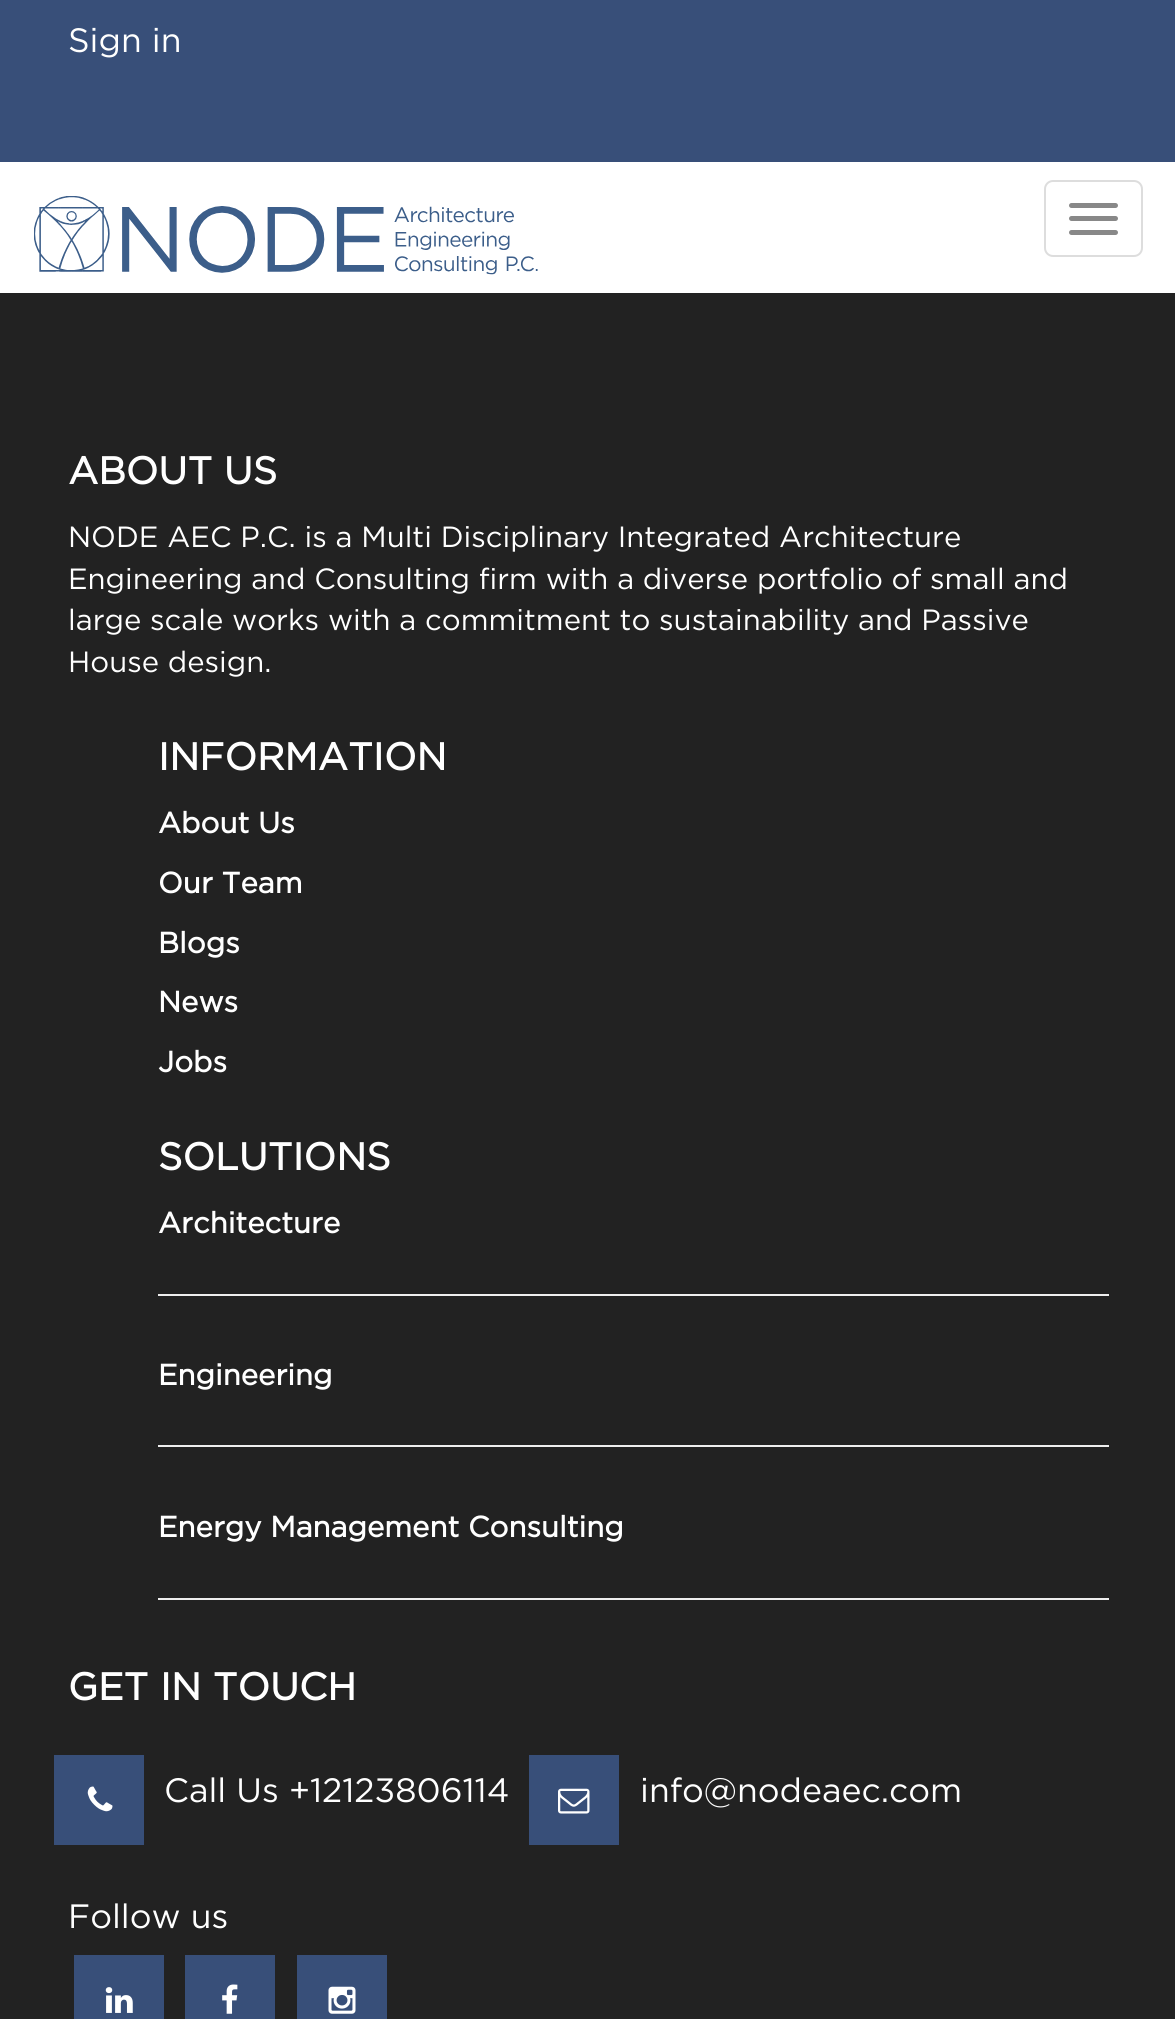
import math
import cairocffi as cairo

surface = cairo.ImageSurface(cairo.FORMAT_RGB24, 1175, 2019)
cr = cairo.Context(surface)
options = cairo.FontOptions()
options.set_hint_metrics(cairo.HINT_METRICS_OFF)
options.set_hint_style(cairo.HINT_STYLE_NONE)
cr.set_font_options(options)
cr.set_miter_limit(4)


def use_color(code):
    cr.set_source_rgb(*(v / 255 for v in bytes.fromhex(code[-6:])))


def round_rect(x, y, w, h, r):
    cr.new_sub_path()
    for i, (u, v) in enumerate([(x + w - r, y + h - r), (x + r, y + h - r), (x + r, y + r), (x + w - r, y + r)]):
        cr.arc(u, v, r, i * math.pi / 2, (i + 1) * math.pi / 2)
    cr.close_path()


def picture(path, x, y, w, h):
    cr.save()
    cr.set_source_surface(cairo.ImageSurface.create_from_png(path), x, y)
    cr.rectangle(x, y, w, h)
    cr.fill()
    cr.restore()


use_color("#ffffff")
cr.paint()
use_color("#384f79")
cr.rectangle(0, 0, 1175, 162)
cr.fill()
cr.select_font_face("Gotham")
cr.set_font_size(33.75)
use_color("#ffffff")
cr.move_to(68, 52)
cr.show_text("Sign in")
picture("img1.png", 34, 196, 504, 79)
round_rect(1045, 181, 97, 75, 8)
use_color("#dddddd")
cr.stroke()
use_color("#888888")
round_rect(1069, 203, 49, 5, 2.5)
cr.fill()
round_rect(1069, 216, 49, 5, 2.5)
cr.fill()
round_rect(1069, 230, 49, 5, 2.5)
cr.fill()
use_color("#222222")
cr.rectangle(0, 293, 1175, 1726)
cr.fill()
cr.select_font_face("Gotham", cairo.FONT_SLANT_NORMAL, cairo.FONT_WEIGHT_BOLD)
cr.set_font_size(38.25)
use_color("#ffffff")
cr.move_to(68, 484)
cr.show_text("ABOUT US")
cr.select_font_face("Gotham")
cr.set_font_size(29.25)
cr.move_to(68, 547)
cr.show_text("NODE AEC P.C. is a Multi Disciplinary Integrated Architecture")
cr.move_to(68, 589)
cr.show_text("Engineering and Consulting firm with a diverse portfolio of small and")
cr.move_to(68, 630)
cr.show_text("large scale works with a commitment to sustainability and Passive")
cr.move_to(68, 672)
cr.show_text("House design.")
cr.select_font_face("Gotham", cairo.FONT_SLANT_NORMAL, cairo.FONT_WEIGHT_BOLD)
cr.set_font_size(38.25)
cr.move_to(158, 770)
cr.show_text("INFORMATION")
cr.set_font_size(29.25)
cr.move_to(158, 833)
cr.show_text("About Us")
cr.move_to(158, 893)
cr.show_text("Our Team")
cr.move_to(158, 953)
cr.show_text("Blogs")
cr.move_to(158, 1012)
cr.show_text("News")
cr.move_to(158, 1072)
cr.show_text("Jobs")
cr.set_font_size(38.25)
cr.move_to(158, 1170)
cr.show_text("SOLUTIONS")
cr.set_font_size(29.25)
cr.move_to(158, 1233)
cr.show_text("Architecture")
use_color("#eeeeee")
cr.rectangle(158, 1294, 951, 2)
cr.fill()
use_color("#ffffff")
cr.move_to(158, 1385)
cr.show_text("Engineering")
use_color("#eeeeee")
cr.rectangle(158, 1445, 951, 2)
cr.fill()
use_color("#ffffff")
cr.move_to(158, 1537)
cr.show_text("Energy Management Consulting")
use_color("#eeeeee")
cr.rectangle(158, 1598, 951, 2)
cr.fill()
cr.set_font_size(38.25)
use_color("#ffffff")
cr.move_to(68, 1700)
cr.show_text("GET IN TOUCH")
use_color("#384f79")
cr.rectangle(54, 1755, 90, 90)
cr.fill()
picture("img2.png", 87, 1786, 26, 26)
cr.select_font_face("Gotham")
cr.set_font_size(33.75)
use_color("#ffffff")
cr.move_to(164, 1802)
cr.show_text("Call Us +12123806114")
use_color("#384f79")
cr.rectangle(529, 1755, 90, 90)
cr.fill()
picture("img3.png", 558, 1788, 32, 26)
use_color("#ffffff")
cr.move_to(640, 1802)
cr.show_text("info@nodeaec.com")
cr.move_to(68, 1928)
cr.show_text("Follow us")
use_color("#384f79")
cr.rectangle(74, 1955, 90, 64)
cr.fill()
picture("img4.png", 105, 1987, 28, 26)
cr.rectangle(185, 1955, 90, 64)
cr.fill()
picture("img5.png", 222, 1984, 16, 30)
cr.rectangle(297, 1955, 90, 64)
cr.fill()
picture("img6.png", 328, 1986, 28, 28)
surface.write_to_png("result.png")
